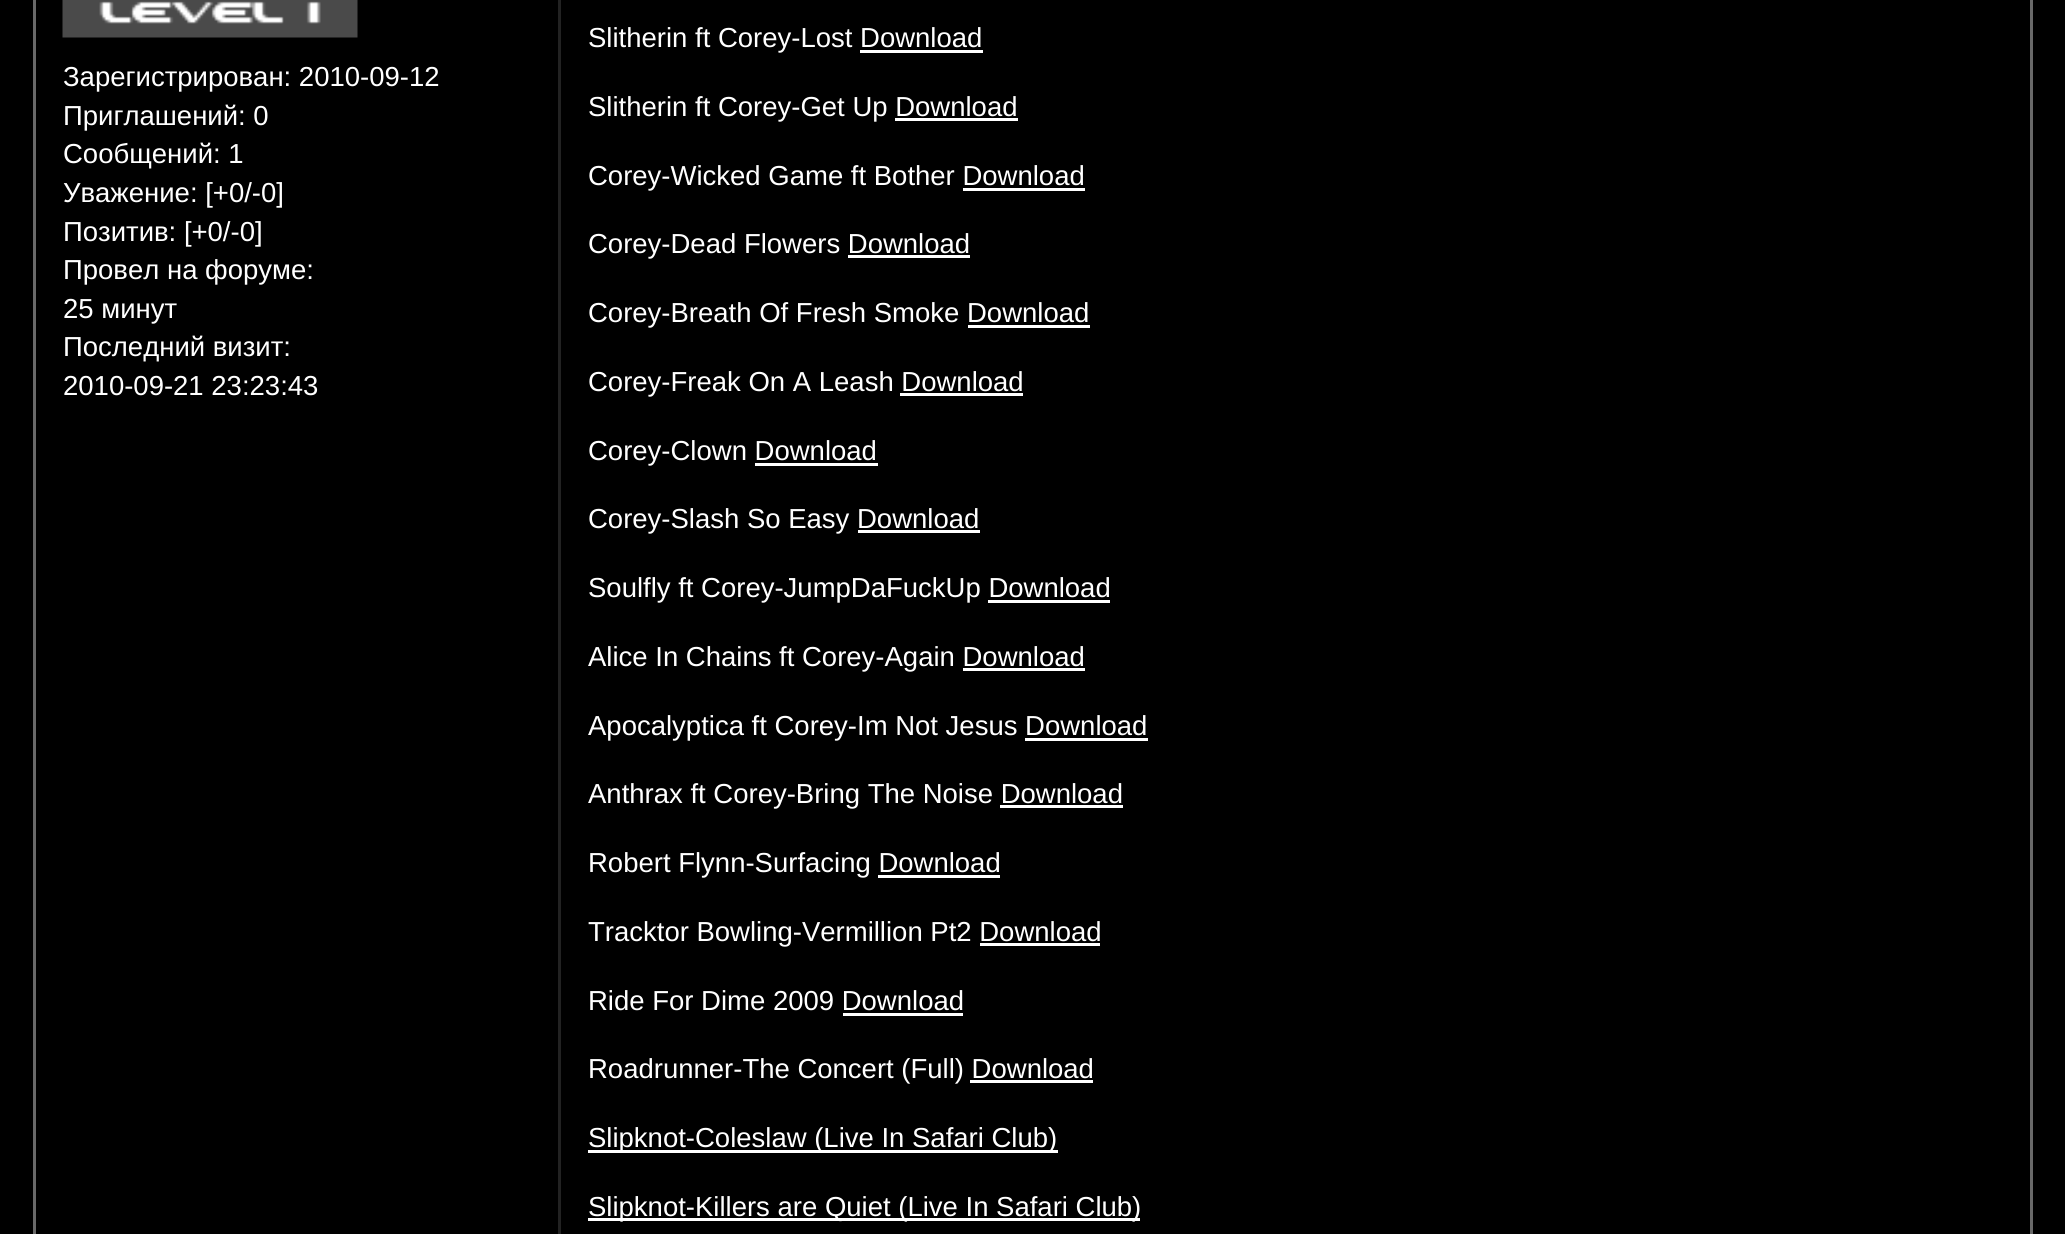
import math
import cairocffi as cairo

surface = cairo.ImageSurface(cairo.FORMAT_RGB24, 2065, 1234)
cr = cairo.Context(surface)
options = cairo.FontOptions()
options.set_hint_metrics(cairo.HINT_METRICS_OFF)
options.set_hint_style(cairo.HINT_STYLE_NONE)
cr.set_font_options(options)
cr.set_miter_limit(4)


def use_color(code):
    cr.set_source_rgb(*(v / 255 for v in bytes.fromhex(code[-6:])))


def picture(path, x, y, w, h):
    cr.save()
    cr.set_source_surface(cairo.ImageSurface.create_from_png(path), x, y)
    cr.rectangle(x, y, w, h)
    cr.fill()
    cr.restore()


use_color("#000000")
cr.paint()
use_color("#696969")
cr.rectangle(2030, 0, 3, 1234)
cr.fill()
cr.rectangle(33, 0, 3, 1234)
cr.fill()
picture("img1.png", 62, 0, 296, 38)
cr.select_font_face("Liberation Sans")
cr.set_font_size(27.5)
use_color("#ffffff")
cr.move_to(63, 86)
cr.show_text("Зарегистрирован: 2010-09-12")
cr.move_to(63, 125)
cr.show_text("Приглашений: 0")
cr.move_to(63, 163)
cr.show_text("Сообщений: 1")
cr.move_to(63, 202)
cr.show_text("Уважение: [+0/-0]")
cr.move_to(63, 241)
cr.show_text("Позитив: [+0/-0]")
cr.move_to(63, 279)
cr.show_text("Провел на форуме:")
cr.move_to(63, 318)
cr.show_text("25 минут")
cr.move_to(63, 356)
cr.show_text("Последний визит:")
cr.move_to(63, 395)
cr.show_text("2010-09-21 23:23:43")
use_color("#222222")
cr.rectangle(558, 0, 3, 1234)
cr.fill()
use_color("#ffffff")
cr.move_to(588, 47)
cr.show_text("Slitherin ft Corey-Lost Download")
cr.rectangle(860, 50, 123, 3)
cr.fill()
cr.move_to(588, 116)
cr.show_text("Slitherin ft Corey-Get Up Download")
cr.rectangle(895, 118, 123, 3)
cr.fill()
cr.move_to(588, 185)
cr.show_text("Corey-Wicked Game ft Bother Download")
cr.rectangle(963, 188, 122, 3)
cr.fill()
cr.move_to(588, 253)
cr.show_text("Corey-Dead Flowers Download")
cr.rectangle(848, 255, 122, 3)
cr.fill()
cr.move_to(588, 322)
cr.show_text("Corey-Breath Of Fresh Smoke Download")
cr.rectangle(968, 325, 122, 3)
cr.fill()
cr.move_to(588, 391)
cr.show_text("Corey-Freak On A Leash Download")
cr.rectangle(900, 393, 123, 3)
cr.fill()
cr.move_to(588, 460)
cr.show_text("Corey-Clown Download")
cr.rectangle(755, 463, 123, 3)
cr.fill()
cr.move_to(588, 528)
cr.show_text("Corey-Slash So Easy Download")
cr.rectangle(858, 530, 122, 3)
cr.fill()
cr.move_to(588, 597)
cr.show_text("Soulfly ft Corey-JumpDaFuckUp Download")
cr.rectangle(988, 600, 122, 3)
cr.fill()
cr.move_to(588, 666)
cr.show_text("Alice In Chains ft Corey-Again Download")
cr.rectangle(963, 668, 122, 3)
cr.fill()
cr.move_to(588, 735)
cr.show_text("Apocalyptica ft Corey-Im Not Jesus Download")
cr.rectangle(1025, 738, 123, 3)
cr.fill()
cr.move_to(588, 803)
cr.show_text("Anthrax ft Corey-Bring The Noise Download")
cr.rectangle(1000, 805, 123, 3)
cr.fill()
cr.move_to(588, 872)
cr.show_text("Robert Flynn-Surfacing Download")
cr.rectangle(878, 875, 122, 3)
cr.fill()
cr.move_to(588, 941)
cr.show_text("Tracktor Bowling-Vermillion Pt2 Download")
cr.rectangle(980, 943, 120, 3)
cr.fill()
cr.move_to(588, 1010)
cr.show_text("Ride For Dime 2009 Download")
cr.rectangle(843, 1013, 120, 3)
cr.fill()
cr.move_to(588, 1078)
cr.show_text("Roadrunner-The Concert (Full) Download")
cr.rectangle(970, 1080, 123, 3)
cr.fill()
cr.rectangle(588, 1150, 470, 3)
cr.fill()
cr.move_to(588, 1147)
cr.show_text("Slipknot-Coleslaw (Live In Safari Club)")
cr.rectangle(588, 1218, 552, 3)
cr.fill()
cr.move_to(588, 1216)
cr.show_text("Slipknot-Killers are Quiet (Live In Safari Club)")
surface.write_to_png("result.png")
